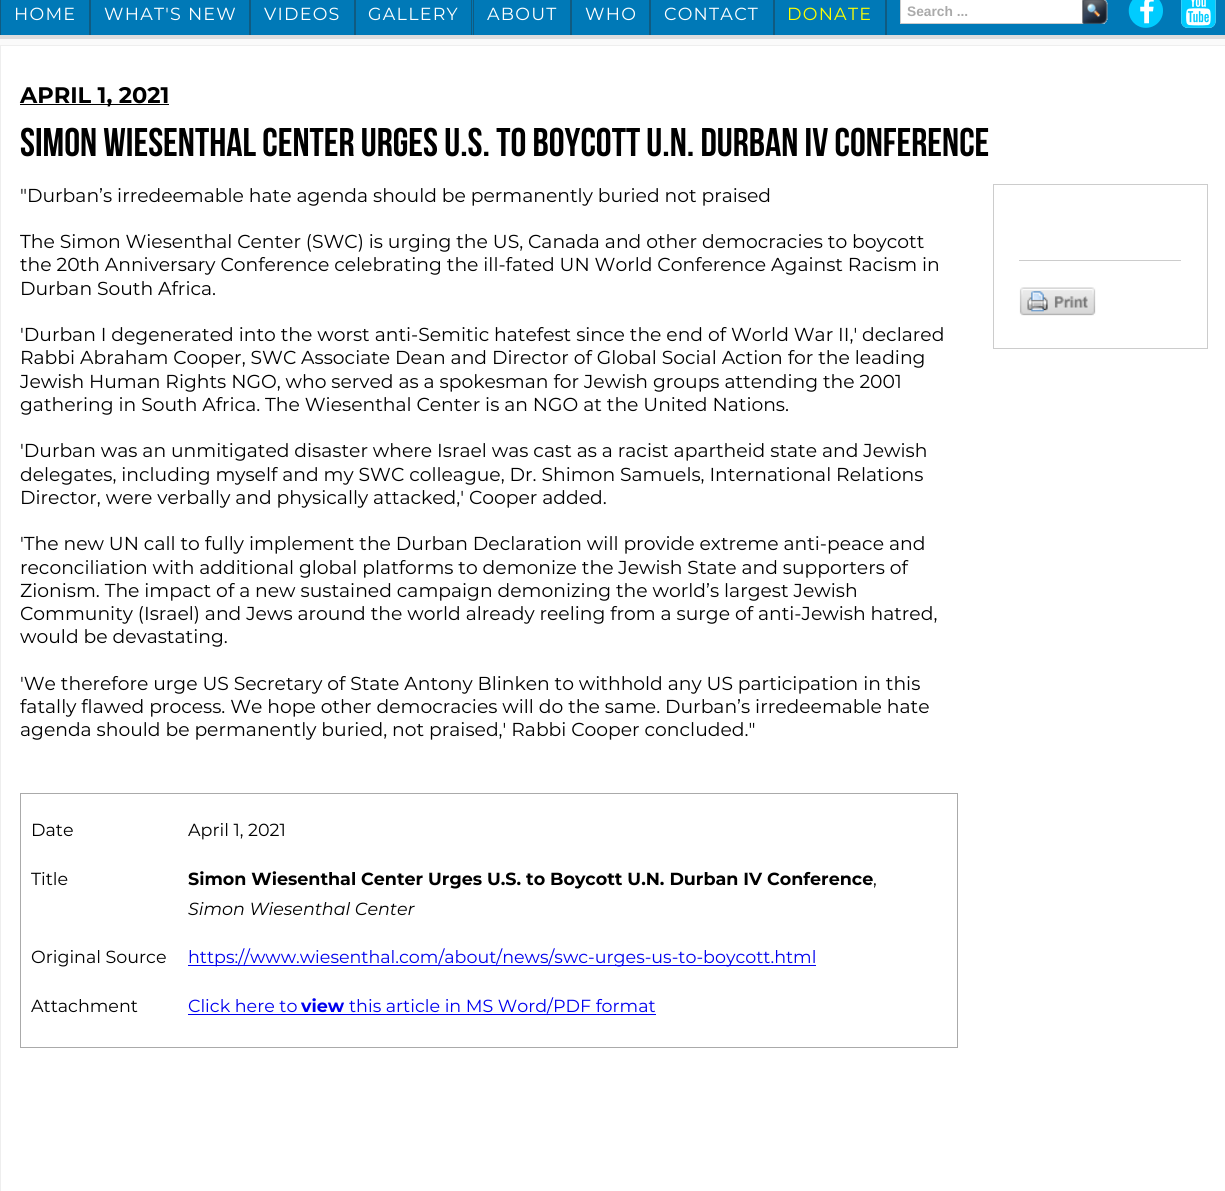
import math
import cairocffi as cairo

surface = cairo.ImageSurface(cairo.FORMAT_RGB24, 1225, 1191)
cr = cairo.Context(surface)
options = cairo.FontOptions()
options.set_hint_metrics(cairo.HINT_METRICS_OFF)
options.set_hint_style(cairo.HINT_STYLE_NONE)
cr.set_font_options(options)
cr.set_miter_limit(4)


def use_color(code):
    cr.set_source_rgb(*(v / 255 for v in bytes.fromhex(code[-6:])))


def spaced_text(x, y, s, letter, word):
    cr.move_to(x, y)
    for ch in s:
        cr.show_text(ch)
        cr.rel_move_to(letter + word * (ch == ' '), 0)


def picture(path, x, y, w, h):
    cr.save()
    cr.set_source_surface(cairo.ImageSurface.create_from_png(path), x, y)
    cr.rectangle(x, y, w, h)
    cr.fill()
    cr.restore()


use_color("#fafafa")
cr.paint()
use_color("#0079b7")
cr.rectangle(1, 0, 1224, 35)
cr.fill()
use_color("#dddddd")
cr.rectangle(0, 35, 1225, 4)
cr.fill()
use_color("#105b81")
cr.rectangle(0, 0, 1, 35)
cr.fill()
cr.rectangle(89, 0, 2, 35)
cr.fill()
cr.select_font_face("Montserrat")
cr.set_font_size(17.5)
use_color("#ffffff")
spaced_text(14, 20, "HOME", 1.25, 0)
use_color("#105b81")
cr.rectangle(249, 0, 2, 35)
cr.fill()
use_color("#ffffff")
spaced_text(104, 20, "WHAT'S NEW", 1.25, 0)
use_color("#105b81")
cr.rectangle(354, 0, 2, 35)
cr.fill()
use_color("#ffffff")
spaced_text(264, 20, "VIDEOS", 1.25, 0)
use_color("#105b81")
cr.rectangle(473, 0, 1, 35)
cr.fill()
cr.rectangle(471, 0, 1, 35)
cr.fill()
use_color("#ffffff")
spaced_text(368, 20, "GALLERY", 1.25, 0)
use_color("#105b81")
cr.rectangle(570, 0, 2, 35)
cr.fill()
use_color("#ffffff")
spaced_text(487, 20, "ABOUT", 1.25, 0)
use_color("#105b81")
cr.rectangle(649, 0, 2, 35)
cr.fill()
use_color("#ffffff")
spaced_text(585, 20, "WHO", 1.25, 0)
use_color("#105b81")
cr.rectangle(773, 0, 2, 35)
cr.fill()
use_color("#ffffff")
spaced_text(664, 20, "CONTACT", 1.25, 0)
use_color("#105b81")
cr.rectangle(885, 0, 2, 35)
cr.fill()
use_color("#ffff00")
spaced_text(787, 20, "DONATE", 1.25, 0)
use_color("#ffffff")
cr.rectangle(900.5, -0.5, 182, 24)
cr.fill_preserve()
use_color("#cccccc")
cr.set_line_width(1)
cr.stroke()
cr.select_font_face("Liberation Sans", cairo.FONT_SLANT_NORMAL, cairo.FONT_WEIGHT_BOLD)
cr.set_font_size(13.75)
use_color("#aaaaaa")
cr.move_to(907, 16)
cr.show_text("Search ...")
picture("img1.png", 1082, 0, 26, 24)
picture("img2.png", 1128, 0, 35, 28)
picture("img3.png", 1140, 0, 14, 24)
picture("img4.png", 1181, 0, 35, 28)
picture("img5.png", 1181, 0, 35, 28)
use_color("#ffffff")
cr.rectangle(0.5, 45.5, 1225, 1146)
cr.fill_preserve()
use_color("#eeeeee")
cr.stroke()
use_color("#000000")
cr.rectangle(20, 104, 149, 1)
cr.fill()
cr.select_font_face("Montserrat", cairo.FONT_SLANT_NORMAL, cairo.FONT_WEIGHT_BOLD)
cr.set_font_size(22.5)
cr.move_to(20, 103)
cr.show_text("APRIL 1, 2021")
cr.select_font_face("Bebas Neue")
cr.set_font_size(40)
cr.move_to(20, 156)
cr.show_text("SIMON WIESENTHAL CENTER URGES U.S. TO BOYCOTT U.N. DURBAN IV CONFERENCE")
cr.select_font_face("Montserrat")
cr.set_font_size(18.75)
cr.move_to(20, 202)
cr.show_text("\"Durban’s irredeemable hate agenda should be permanently buried not praised")
cr.move_to(20, 248)
cr.show_text("The Simon Wiesenthal Center (SWC) is urging the US, Canada and other democracies to boycott")
cr.move_to(20, 271)
cr.show_text("the 20th Anniversary Conference celebrating the ill-fated UN World Conference Against Racism in")
cr.move_to(20, 295)
cr.show_text("Durban South Africa.")
cr.move_to(20, 341)
cr.show_text("'Durban I degenerated into the worst anti-Semitic hatefest since the end of World War II,' declared")
cr.move_to(20, 364)
cr.show_text("Rabbi Abraham Cooper, SWC Associate Dean and Director of Global Social Action for the leading")
cr.move_to(20, 388)
cr.show_text("Jewish Human Rights NGO, who served as a spokesman for Jewish groups attending the 2001")
cr.move_to(20, 411)
cr.show_text("gathering in South Africa. The Wiesenthal Center is an NGO at the United Nations.")
cr.move_to(20, 457)
cr.show_text("'Durban was an unmitigated disaster where Israel was cast as a racist apartheid state and Jewish")
cr.move_to(20, 481)
cr.show_text("delegates, including myself and my SWC colleague, Dr. Shimon Samuels, International Relations")
cr.move_to(20, 504)
cr.show_text("Director, were verbally and physically attacked,' Cooper added.")
cr.move_to(20, 550)
cr.show_text("'The new UN call to fully implement the Durban Declaration will provide extreme anti-peace and")
cr.move_to(20, 574)
cr.show_text("reconciliation with additional global platforms to demonize the Jewish State and supporters of")
cr.move_to(20, 597)
cr.show_text("Zionism. The impact of a new sustained campaign demonizing the world’s largest Jewish")
cr.move_to(20, 620)
cr.show_text("Community (Israel) and Jews around the world already reeling from a surge of anti-Jewish hatred,")
cr.move_to(20, 643)
cr.show_text("would be devastating.")
cr.move_to(20, 690)
cr.show_text("'We therefore urge US Secretary of State Antony Blinken to withhold any US participation in this")
cr.move_to(20, 713)
cr.show_text("fatally flawed process. We hope other democracies will do the same. Durban’s irredeemable hate")
cr.move_to(20, 736)
cr.show_text("agenda should be permanently buried, not praised,' Rabbi Cooper concluded.\"")
cr.rectangle(20.5, 793.5, 937, 254)
use_color("#aaaaaa")
cr.stroke()
cr.set_font_size(17.5)
use_color("#000000")
cr.move_to(31, 836)
cr.show_text("Date")
cr.move_to(188, 836)
cr.show_text("April 1, 2021")
cr.move_to(31, 885)
cr.show_text("Title")
cr.select_font_face("Montserrat", cairo.FONT_SLANT_NORMAL, cairo.FONT_WEIGHT_BOLD)
cr.move_to(188, 885)
cr.show_text("Simon Wiesenthal Center Urges U.S. to Boycott U.N. Durban IV Conference")
cr.select_font_face("Montserrat")
cr.move_to(873, 885)
cr.show_text(",")
cr.select_font_face("Montserrat", cairo.FONT_SLANT_ITALIC)
cr.move_to(188, 915)
cr.show_text("Simon Wiesenthal Center")
cr.select_font_face("Montserrat")
cr.move_to(31, 963)
cr.show_text("Original Source")
use_color("#0000ee")
cr.rectangle(188, 965, 628, 1)
cr.fill()
cr.move_to(188, 963)
cr.show_text("https://www.wiesenthal.com/about/news/swc-urges-us-to-boycott.html")
use_color("#000000")
cr.move_to(31, 1012)
cr.show_text("Attachment")
use_color("#0000ee")
cr.move_to(188, 1012)
cr.show_text("Click here to")
cr.rectangle(188, 1014, 468, 1)
cr.fill()
cr.select_font_face("Montserrat", cairo.FONT_SLANT_NORMAL, cairo.FONT_WEIGHT_BOLD)
cr.move_to(301, 1012)
cr.show_text("view")
cr.select_font_face("Montserrat")
cr.move_to(349, 1012)
cr.show_text("this article in MS Word/PDF format")
cr.rectangle(993.5, 184.5, 214, 164)
use_color("#cccccc")
cr.stroke()
cr.rectangle(1019, 260, 162, 1)
cr.fill()
picture("img6.png", 1019, 287, 77, 29)
surface.write_to_png("result.png")
